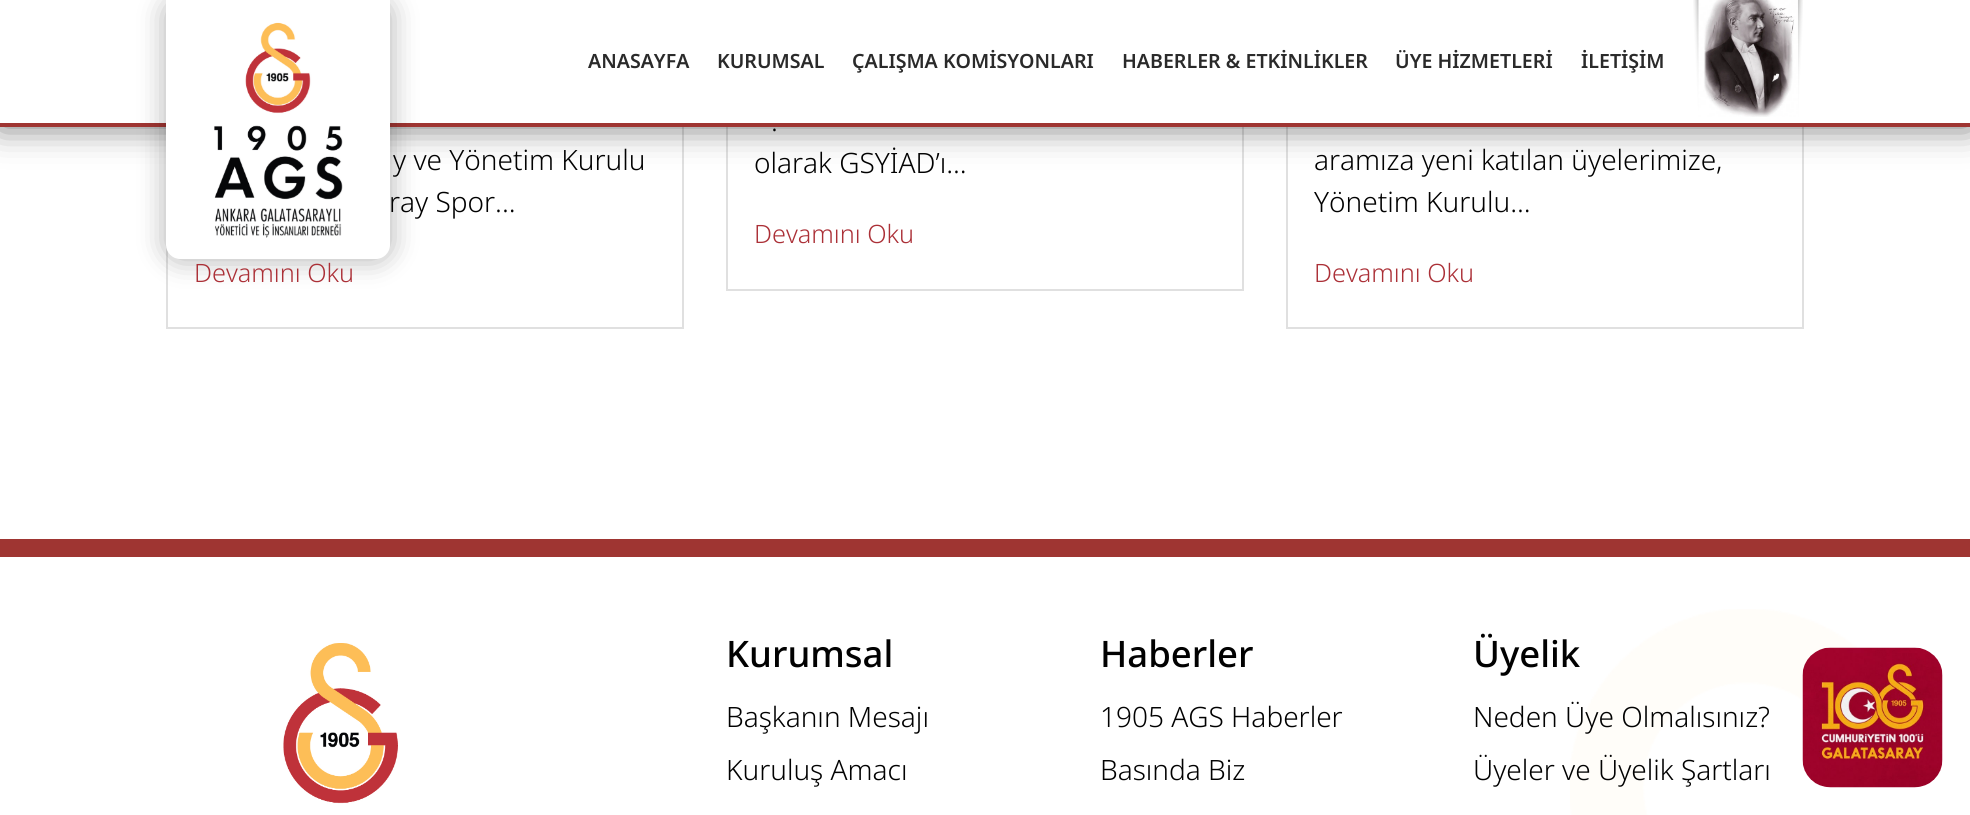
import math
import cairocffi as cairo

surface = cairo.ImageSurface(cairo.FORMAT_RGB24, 1970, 815)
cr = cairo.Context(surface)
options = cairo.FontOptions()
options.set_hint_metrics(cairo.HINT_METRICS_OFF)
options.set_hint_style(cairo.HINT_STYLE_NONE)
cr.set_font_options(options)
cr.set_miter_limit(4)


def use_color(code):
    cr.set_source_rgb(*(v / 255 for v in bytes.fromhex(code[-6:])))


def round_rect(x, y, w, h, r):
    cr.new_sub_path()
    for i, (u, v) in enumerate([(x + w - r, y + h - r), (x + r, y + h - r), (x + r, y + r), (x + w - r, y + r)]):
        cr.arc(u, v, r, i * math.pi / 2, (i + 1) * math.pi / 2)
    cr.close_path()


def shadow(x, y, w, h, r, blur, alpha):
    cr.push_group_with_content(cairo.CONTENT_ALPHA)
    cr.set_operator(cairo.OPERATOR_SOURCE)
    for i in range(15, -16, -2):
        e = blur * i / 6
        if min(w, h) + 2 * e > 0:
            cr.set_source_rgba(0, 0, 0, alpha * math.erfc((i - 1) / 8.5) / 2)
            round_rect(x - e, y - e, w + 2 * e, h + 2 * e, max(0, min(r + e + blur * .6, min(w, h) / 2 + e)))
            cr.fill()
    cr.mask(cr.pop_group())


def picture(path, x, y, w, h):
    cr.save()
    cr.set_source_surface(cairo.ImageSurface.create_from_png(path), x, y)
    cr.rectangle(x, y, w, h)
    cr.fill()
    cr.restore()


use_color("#ffffff")
cr.paint()
cr.rectangle(167, -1, 516, 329)
use_color("#e0e0e0")
cr.stroke()
cr.rectangle(727, -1, 516, 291)
cr.stroke()
cr.rectangle(1287, -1, 516, 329)
cr.stroke()
use_color("#000000")
shadow(0, 0, 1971, 126, 0, 17.5, 0.58)
use_color("#ffffff")
cr.rectangle(0, 0, 1970, 123)
cr.fill()
use_color("#9f3532")
cr.rectangle(0, 123, 1970, 4)
cr.fill()
use_color("#000000")
shadow(166, 0, 224, 259, 14, 14, 0.32)
use_color("#ffffff")
cr.new_path()
cr.move_to(166, 0)
cr.line_to(390, 0)
cr.line_to(390, 245)
cr.curve_to(390, 252.5, 383.5, 259, 376, 259)
cr.line_to(180, 259)
cr.curve_to(172.5, 259, 166, 252.5, 166, 245)
cr.close_path()
cr.fill()
picture("img1.png", 214, 22, 129, 216)
cr.select_font_face("Noto Sans SemiBold")
cr.set_font_size(19.6)
use_color("#2a2a2a")
cr.move_to(588, 68)
cr.show_text("ANASAYFA")
cr.move_to(717, 68)
cr.show_text("KURUMSAL")
cr.move_to(852, 68)
cr.show_text("ÇALIŞMA KOMİSYONLARI")
cr.move_to(1122, 68)
cr.show_text("HABERLER & ETKİNLİKLER")
cr.move_to(1395, 68)
cr.show_text("ÜYE HİZMETLERİ")
cr.move_to(1581, 68)
cr.show_text("İLETİŞİM")
picture("img2.png", 1693, 0, 110, 117)
cr.select_font_face("Noto Sans Light")
cr.set_font_size(28)
use_color("#010101")
cr.move_to(393, 170)
cr.show_text("y ve Yönetim Kurulu")
cr.move_to(389, 212)
cr.show_text("ray Spor...")
cr.set_font_size(25.25)
use_color("#ab3037")
cr.move_to(194, 282)
cr.show_text("Devamını Oku")
cr.set_font_size(28)
use_color("#010101")
cr.move_to(771, 131)
cr.show_text(".")
cr.move_to(754, 173)
cr.show_text("olarak GSYİAD’ı...")
cr.set_font_size(25.25)
use_color("#ab3037")
cr.move_to(754, 243)
cr.show_text("Devamını Oku")
cr.set_font_size(28)
use_color("#010101")
cr.move_to(1314, 170)
cr.show_text("aramıza yeni katılan üyelerimize,")
cr.move_to(1314, 212)
cr.show_text("Yönetim Kurulu...")
cr.set_font_size(25.25)
use_color("#ab3037")
cr.move_to(1314, 282)
cr.show_text("Devamını Oku")
picture("img3.png", 1570, 609, 287, 206)
use_color("#9f3532")
cr.rectangle(0, 539, 1970, 18)
cr.fill()
picture("img4.png", 283, 643, 115, 161)
cr.select_font_face("Noto Sans Medium")
cr.set_font_size(36.5)
use_color("#010101")
cr.move_to(726, 667)
cr.show_text("Kurumsal")
cr.select_font_face("Noto Sans Light")
cr.set_font_size(28)
cr.move_to(726, 727)
cr.show_text("Başkanın Mesajı")
cr.move_to(726, 780)
cr.show_text("Kuruluş Amacı")
cr.select_font_face("Noto Sans Medium")
cr.set_font_size(36.5)
cr.move_to(1100, 667)
cr.show_text("Haberler")
cr.select_font_face("Noto Sans Light")
cr.set_font_size(28)
cr.move_to(1100, 727)
cr.show_text("1905 AGS Haberler")
cr.move_to(1100, 780)
cr.show_text("Basında Biz")
cr.select_font_face("Noto Sans Medium")
cr.set_font_size(36.5)
cr.move_to(1473, 667)
cr.show_text("Üyelik")
cr.select_font_face("Noto Sans Light")
cr.set_font_size(28)
cr.move_to(1473, 727)
cr.show_text("Neden Üye Olmalısınız?")
cr.move_to(1473, 780)
cr.show_text("Üyeler ve Üyelik Şartları")
picture("img5.png", 1802, 647, 141, 141)
surface.write_to_png("result.png")
